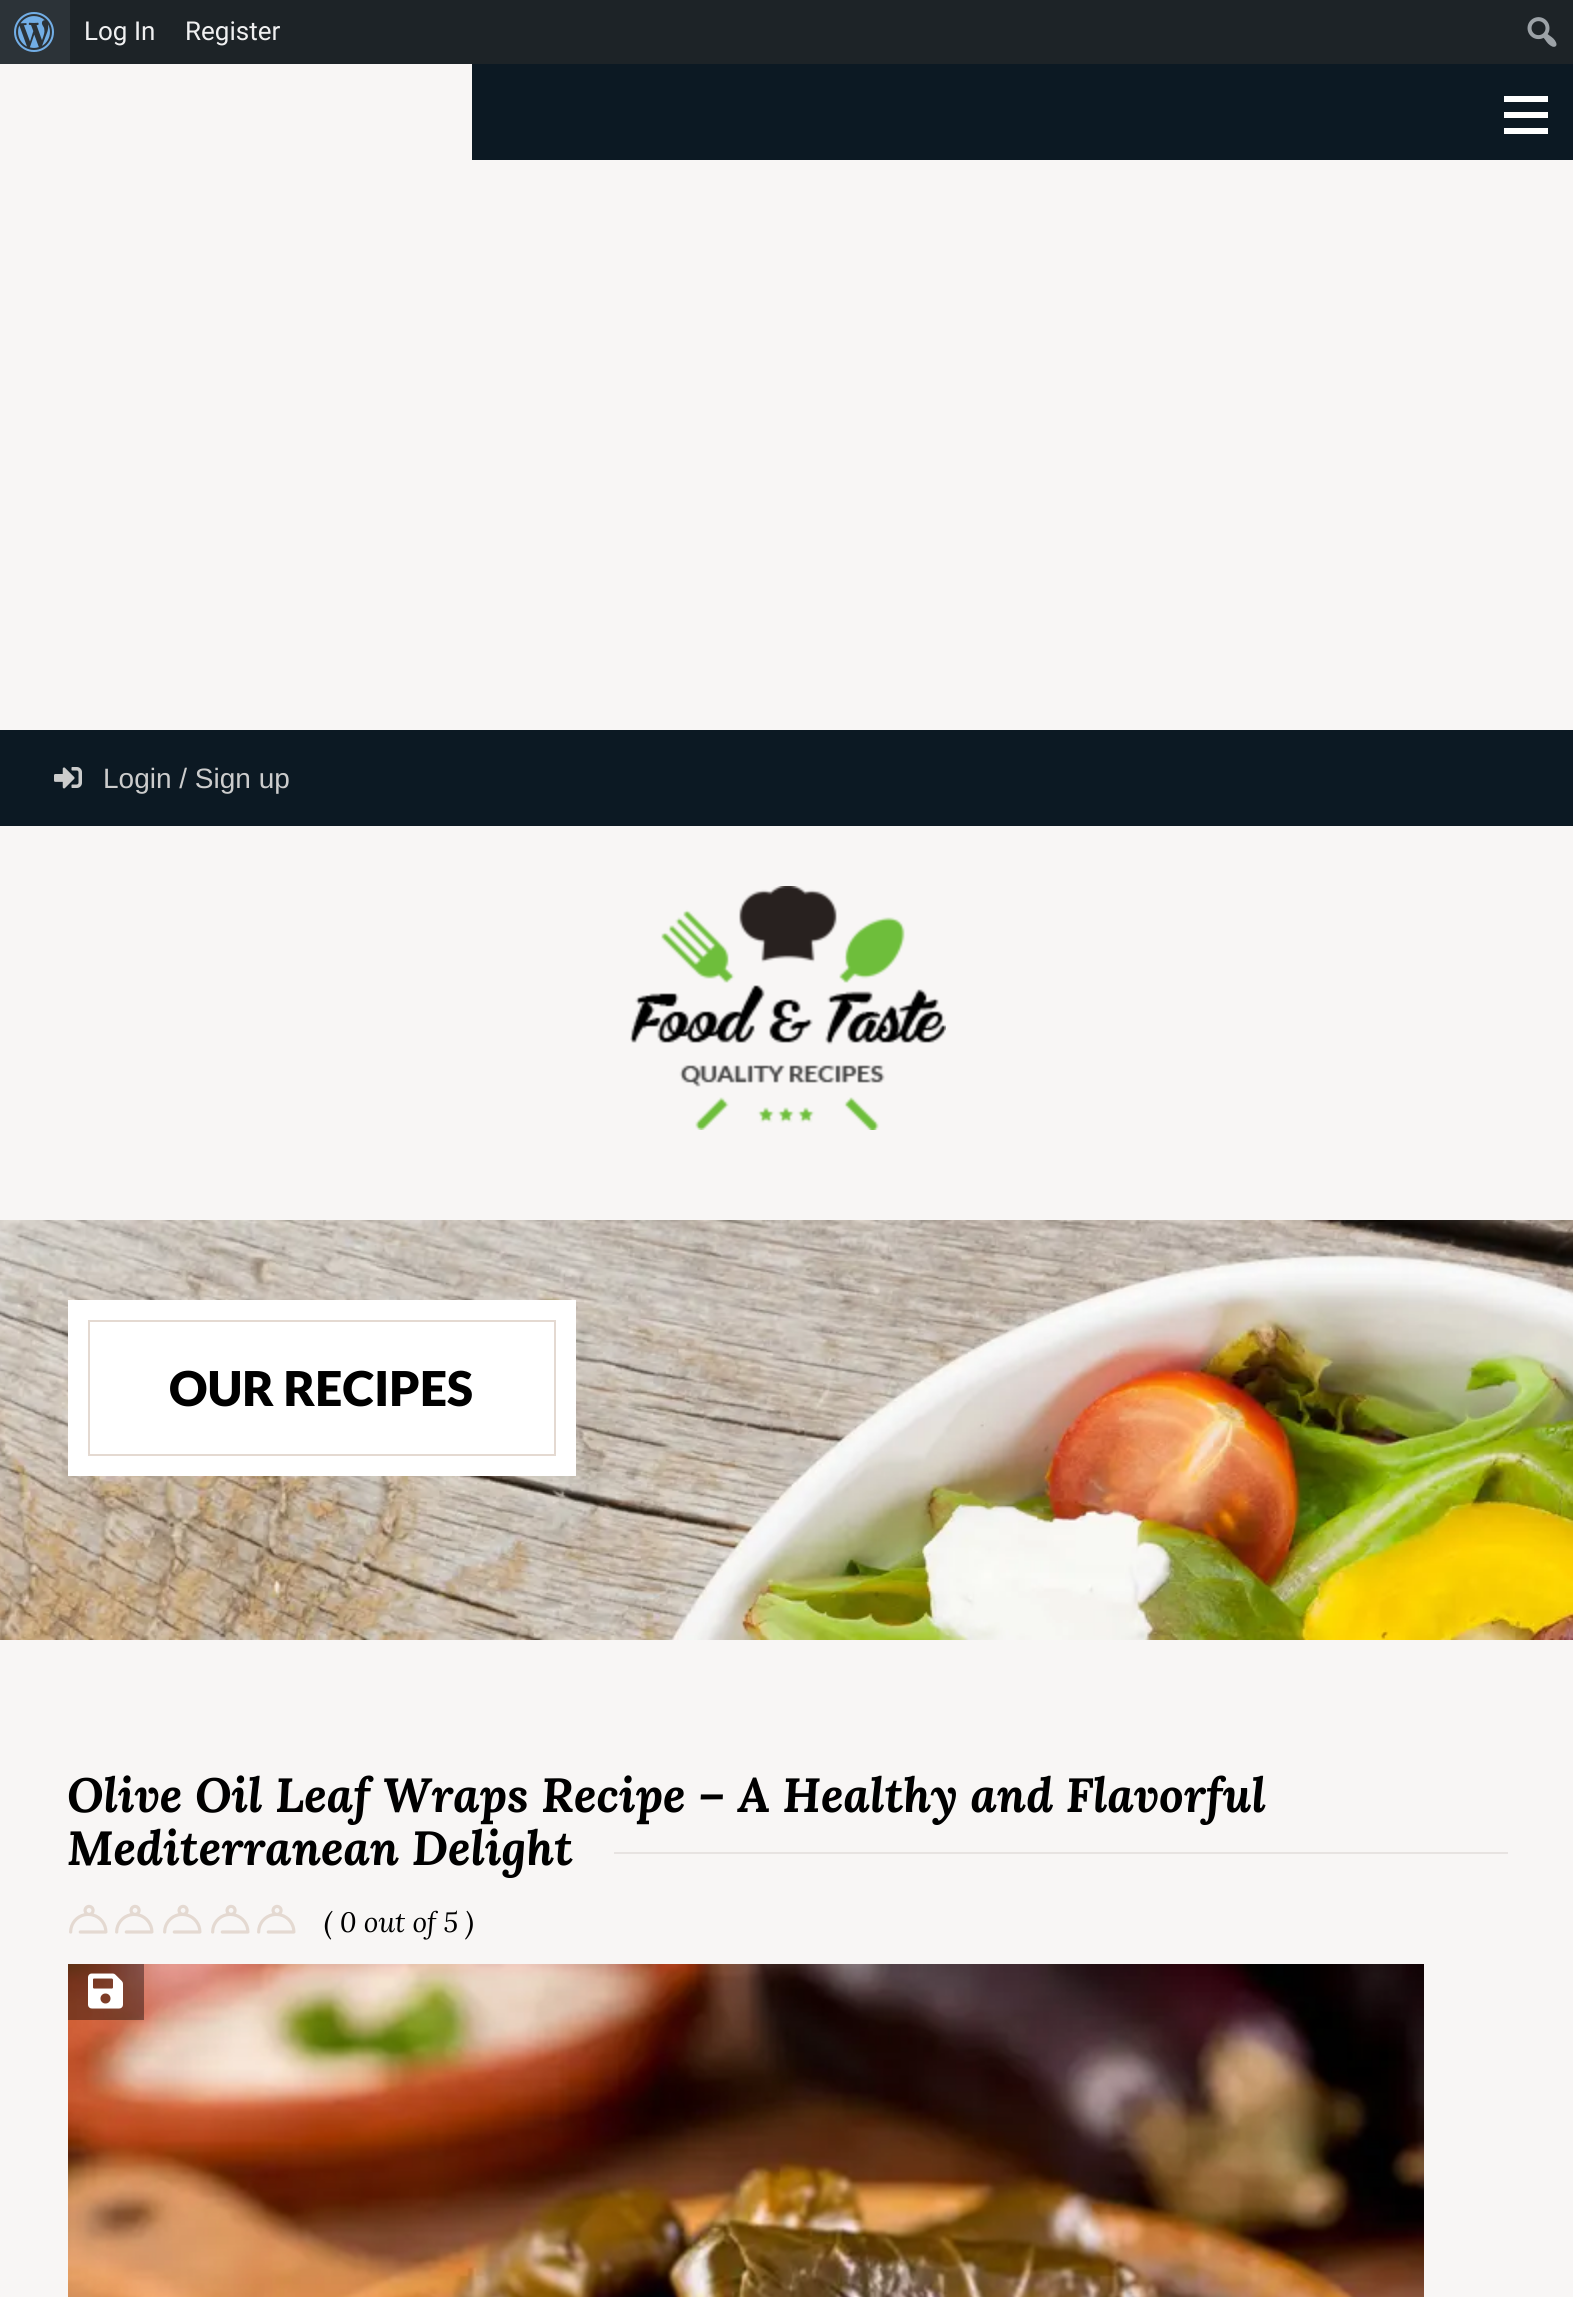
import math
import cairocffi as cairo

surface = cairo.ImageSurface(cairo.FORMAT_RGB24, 1573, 2297)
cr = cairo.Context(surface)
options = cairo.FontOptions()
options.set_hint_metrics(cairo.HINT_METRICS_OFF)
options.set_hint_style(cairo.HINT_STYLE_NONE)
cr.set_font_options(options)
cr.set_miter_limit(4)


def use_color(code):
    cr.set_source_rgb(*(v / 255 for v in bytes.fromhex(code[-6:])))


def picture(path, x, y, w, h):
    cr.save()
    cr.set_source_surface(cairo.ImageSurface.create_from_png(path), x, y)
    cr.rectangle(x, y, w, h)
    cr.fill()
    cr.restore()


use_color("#f8f6f5")
cr.paint()
use_color("#1d2327")
cr.rectangle(70, 0, 1503, 64)
cr.fill()
use_color("#2c3338")
cr.rectangle(0, 0, 70, 64)
cr.fill()
picture("img1.png", 14, 12, 40, 40)
cr.select_font_face("Roboto")
cr.set_font_size(26)
use_color("#f0f0f1")
cr.move_to(84, 40)
cr.show_text("Log In")
cr.move_to(185, 40)
cr.show_text("Register")
picture("img2.png", 1527, 17, 30, 30)
use_color("#0c1923")
cr.rectangle(472, 64, 1101, 96)
cr.fill()
use_color("#ffffff")
cr.rectangle(1504, 96, 44, 6)
cr.fill()
cr.rectangle(1504, 112, 44, 6)
cr.fill()
cr.rectangle(1504, 128, 44, 6)
cr.fill()
use_color("#0c1923")
cr.rectangle(0, 730, 1573, 96)
cr.fill()
picture("img3.png", 54, 767, 28, 22)
cr.select_font_face("Liberation Sans")
cr.set_font_size(28)
use_color("#cccccc")
cr.move_to(103, 788)
cr.show_text("Login / Sign up")
picture("img4.png", 630, 886, 316, 244)
picture("img5.png", 0, 1220, 1573, 420)
use_color("#ffffff")
cr.rectangle(68, 1300, 508, 176)
cr.fill()
cr.rectangle(89, 1321, 466, 134)
use_color("#e4d9d1")
cr.stroke()
cr.select_font_face("Lato Black")
cr.set_font_size(48)
use_color("#000000")
cr.move_to(169, 1406)
cr.show_text("OUR RECIPES")
cr.select_font_face("Lora", cairo.FONT_SLANT_ITALIC, cairo.FONT_WEIGHT_BOLD)
cr.move_to(67, 1812)
cr.show_text("Olive Oil Leaf Wraps Recipe – A Healthy and Flavorful")
cr.move_to(67, 1865)
cr.show_text("Mediterranean Delight")
use_color("#e7e3e1")
cr.rectangle(614, 1852, 894, 2)
cr.fill()
picture("img6.png", 69, 1904, 39, 30)
picture("img6.png", 115, 1904, 39, 30)
picture("img6.png", 163, 1904, 39, 30)
picture("img6.png", 211, 1904, 39, 30)
picture("img6.png", 257, 1904, 39, 30)
cr.select_font_face("Lora", cairo.FONT_SLANT_ITALIC)
cr.set_font_size(28)
use_color("#000000")
cr.move_to(324, 1932)
cr.show_text("( 0 out of 5 )")
picture("img7.png", 68, 1964, 1356, 333)
cr.set_source_rgba(0, 0, 0, 0.4)
cr.rectangle(68, 1964, 76, 56)
cr.fill()
picture("img8.png", 88, 1973, 35, 36)
surface.write_to_png("result.png")
